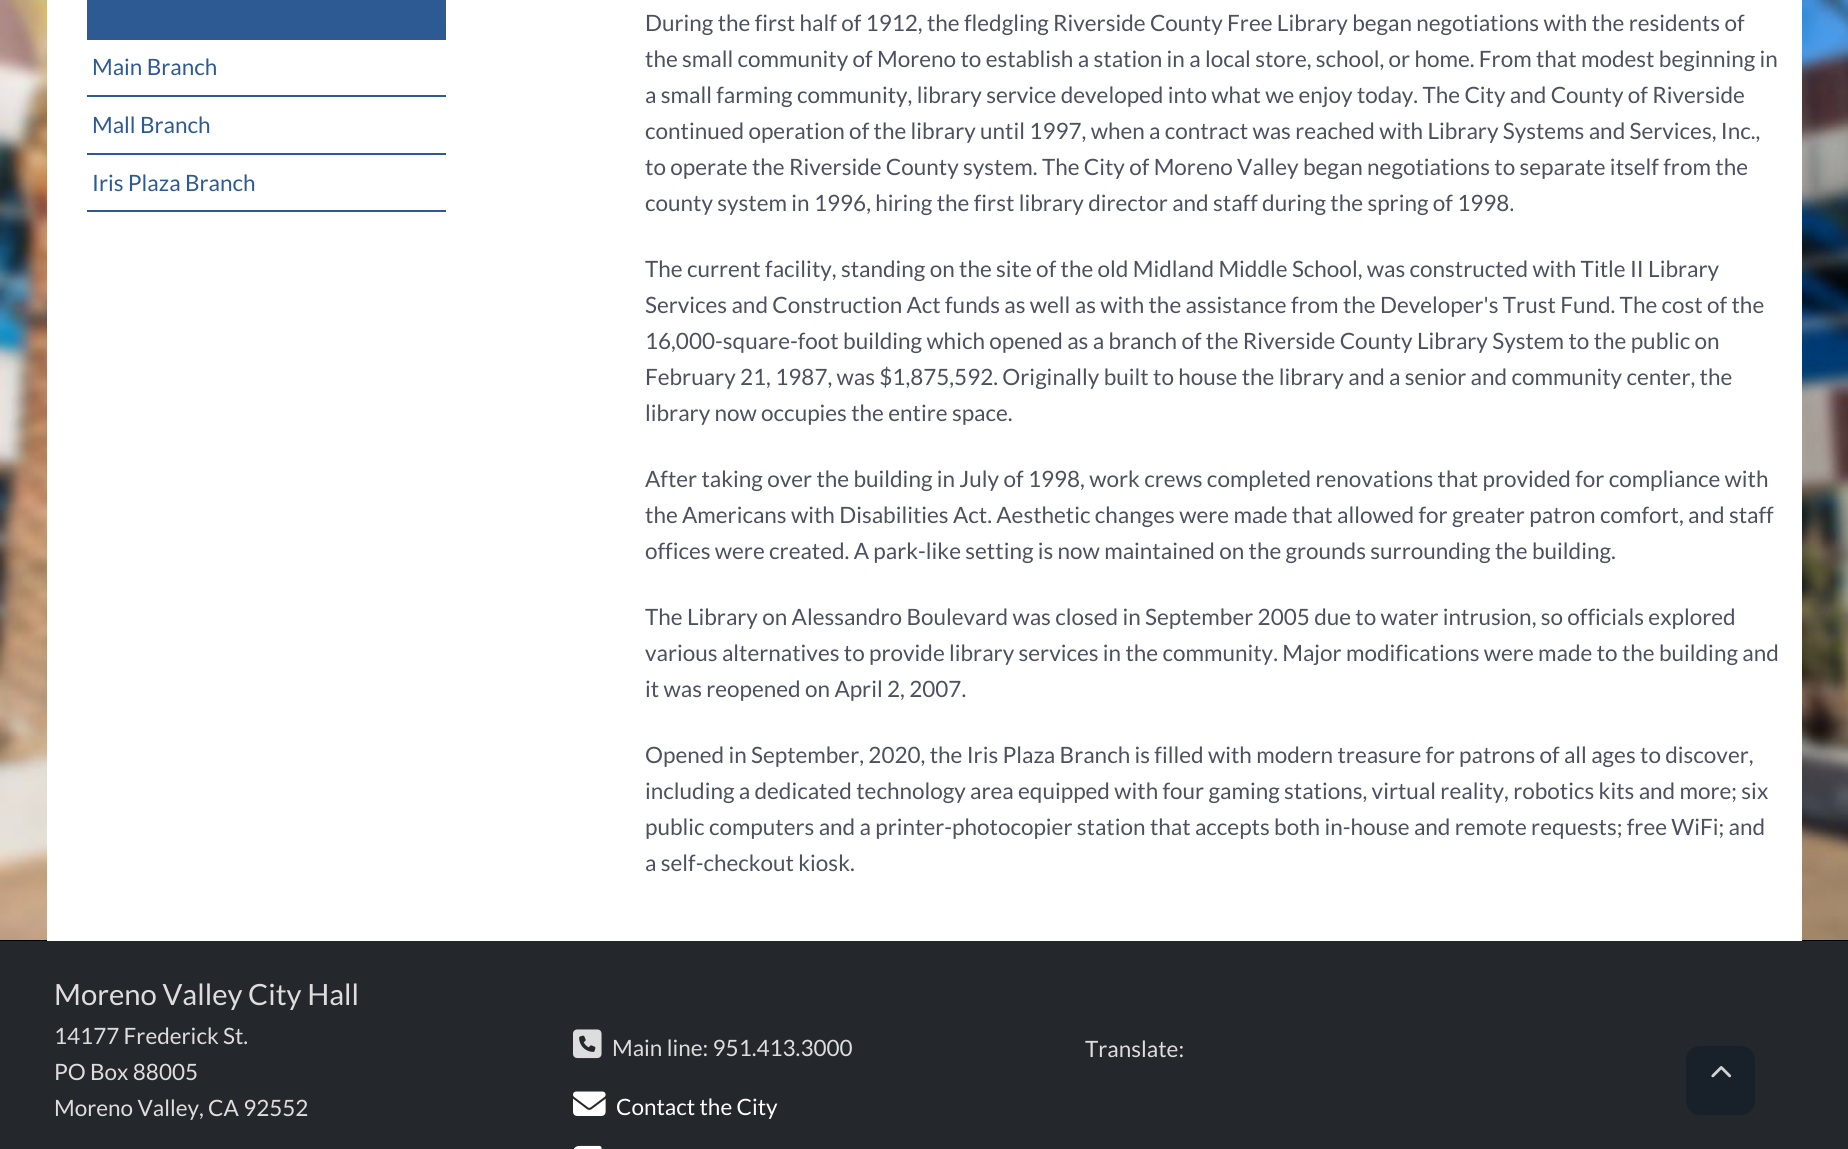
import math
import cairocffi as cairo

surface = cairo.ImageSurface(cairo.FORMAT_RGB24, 1848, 1149)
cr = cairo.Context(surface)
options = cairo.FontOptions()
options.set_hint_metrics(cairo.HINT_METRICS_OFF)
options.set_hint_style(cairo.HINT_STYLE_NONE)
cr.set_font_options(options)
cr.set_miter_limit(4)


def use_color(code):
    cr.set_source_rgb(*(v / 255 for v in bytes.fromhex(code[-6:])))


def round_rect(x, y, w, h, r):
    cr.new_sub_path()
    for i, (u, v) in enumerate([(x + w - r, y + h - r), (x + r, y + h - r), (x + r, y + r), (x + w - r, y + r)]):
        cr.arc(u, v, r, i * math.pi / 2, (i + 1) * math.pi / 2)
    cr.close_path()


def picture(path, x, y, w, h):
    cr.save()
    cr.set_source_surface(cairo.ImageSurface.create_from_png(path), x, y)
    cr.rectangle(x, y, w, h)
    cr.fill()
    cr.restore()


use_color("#000000")
cr.paint()
picture("img1.png", 0, 0, 1848, 940)
use_color("#ffffff")
cr.rectangle(47, 0, 1755, 941)
cr.fill()
use_color("#2e5a93")
cr.rectangle(87, 0, 359, 40)
cr.fill()
cr.rectangle(87, 95, 359, 2)
cr.fill()
cr.select_font_face("Lato")
cr.set_font_size(22.5)
cr.move_to(92, 75)
cr.show_text("Main Branch")
cr.rectangle(87, 153, 359, 2)
cr.fill()
cr.move_to(92, 133)
cr.show_text("Mall Branch")
cr.rectangle(87, 210, 359, 2)
cr.fill()
cr.move_to(92, 191)
cr.show_text("Iris Plaza Branch")
use_color("#4d515f")
cr.move_to(645, 31)
cr.show_text("During the first half of 1912, the fledgling Riverside County Free Library began negotiations with the residents of")
cr.move_to(645, 67)
cr.show_text("the small community of Moreno to establish a station in a local store, school, or home. From that modest beginning in")
cr.move_to(645, 103)
cr.show_text("a small farming community, library service developed into what we enjoy today. The City and County of Riverside")
cr.move_to(645, 139)
cr.show_text("continued operation of the library until 1997, when a contract was reached with Library Systems and Services, Inc.,")
cr.move_to(645, 175)
cr.show_text("to operate the Riverside County system. The City of Moreno Valley began negotiations to separate itself from the")
cr.move_to(645, 211)
cr.show_text("county system in 1996, hiring the first library director and staff during the spring of 1998.")
cr.move_to(645, 277)
cr.show_text("The current facility, standing on the site of the old Midland Middle School, was constructed with Title II Library")
cr.move_to(645, 313)
cr.show_text("Services and Construction Act funds as well as with the assistance from the Developer's Trust Fund. The cost of the")
cr.move_to(645, 349)
cr.show_text("16,000-square-foot building which opened as a branch of the Riverside County Library System to the public on")
cr.move_to(645, 385)
cr.show_text("February 21, 1987, was $1,875,592. Originally built to house the library and a senior and community center, the")
cr.move_to(645, 421)
cr.show_text("library now occupies the entire space.")
cr.move_to(645, 487)
cr.show_text("After taking over the building in July of 1998, work crews completed renovations that provided for compliance with")
cr.move_to(645, 523)
cr.show_text("the Americans with Disabilities Act. Aesthetic changes were made that allowed for greater patron comfort, and staff")
cr.move_to(645, 559)
cr.show_text("offices were created. A park-like setting is now maintained on the grounds surrounding the building.")
cr.move_to(645, 625)
cr.show_text("The Library on Alessandro Boulevard was closed in September 2005 due to water intrusion, so officials explored")
cr.move_to(645, 661)
cr.show_text("various alternatives to provide library services in the community. Major modifications were made to the building and")
cr.move_to(645, 697)
cr.show_text("it was reopened on April 2, 2007.")
cr.move_to(645, 763)
cr.show_text("Opened in September, 2020, the Iris Plaza Branch is filled with modern treasure for patrons of all ages to discover,")
cr.move_to(645, 799)
cr.show_text("including a dedicated technology area equipped with four gaming stations, virtual reality, robotics kits and more; six")
cr.move_to(645, 835)
cr.show_text("public computers and a printer-photocopier station that accepts both in-house and remote requests; free WiFi; and")
cr.move_to(645, 871)
cr.show_text("a self-checkout kiosk.")
use_color("#24282d")
cr.rectangle(0, 941, 1848, 208)
cr.fill()
use_color("#18202a")
round_rect(1686, 1046, 69, 69, 14)
cr.fill()
picture("img2.png", 1711, 1066, 21, 12)
cr.set_font_size(29.25)
use_color("#dddddd")
cr.move_to(54, 1005)
cr.show_text("Moreno Valley City Hall")
cr.set_font_size(22.5)
cr.move_to(54, 1044)
cr.show_text("14177 Frederick St.")
cr.move_to(54, 1080)
cr.show_text("PO Box 88005")
cr.move_to(54, 1116)
cr.show_text("Moreno Valley, CA 92552")
picture("img3.png", 573, 1029, 29, 30)
cr.move_to(612, 1056)
cr.show_text("Main line: 951.413.3000")
picture("img4.png", 573, 1091, 33, 25)
use_color("#ffffff")
cr.move_to(616, 1115)
cr.show_text("Contact the City")
picture("img5.png", 573, 1145, 29, 4)
use_color("#dddddd")
cr.move_to(1085, 1057)
cr.show_text("Translate:")
surface.write_to_png("result.png")
